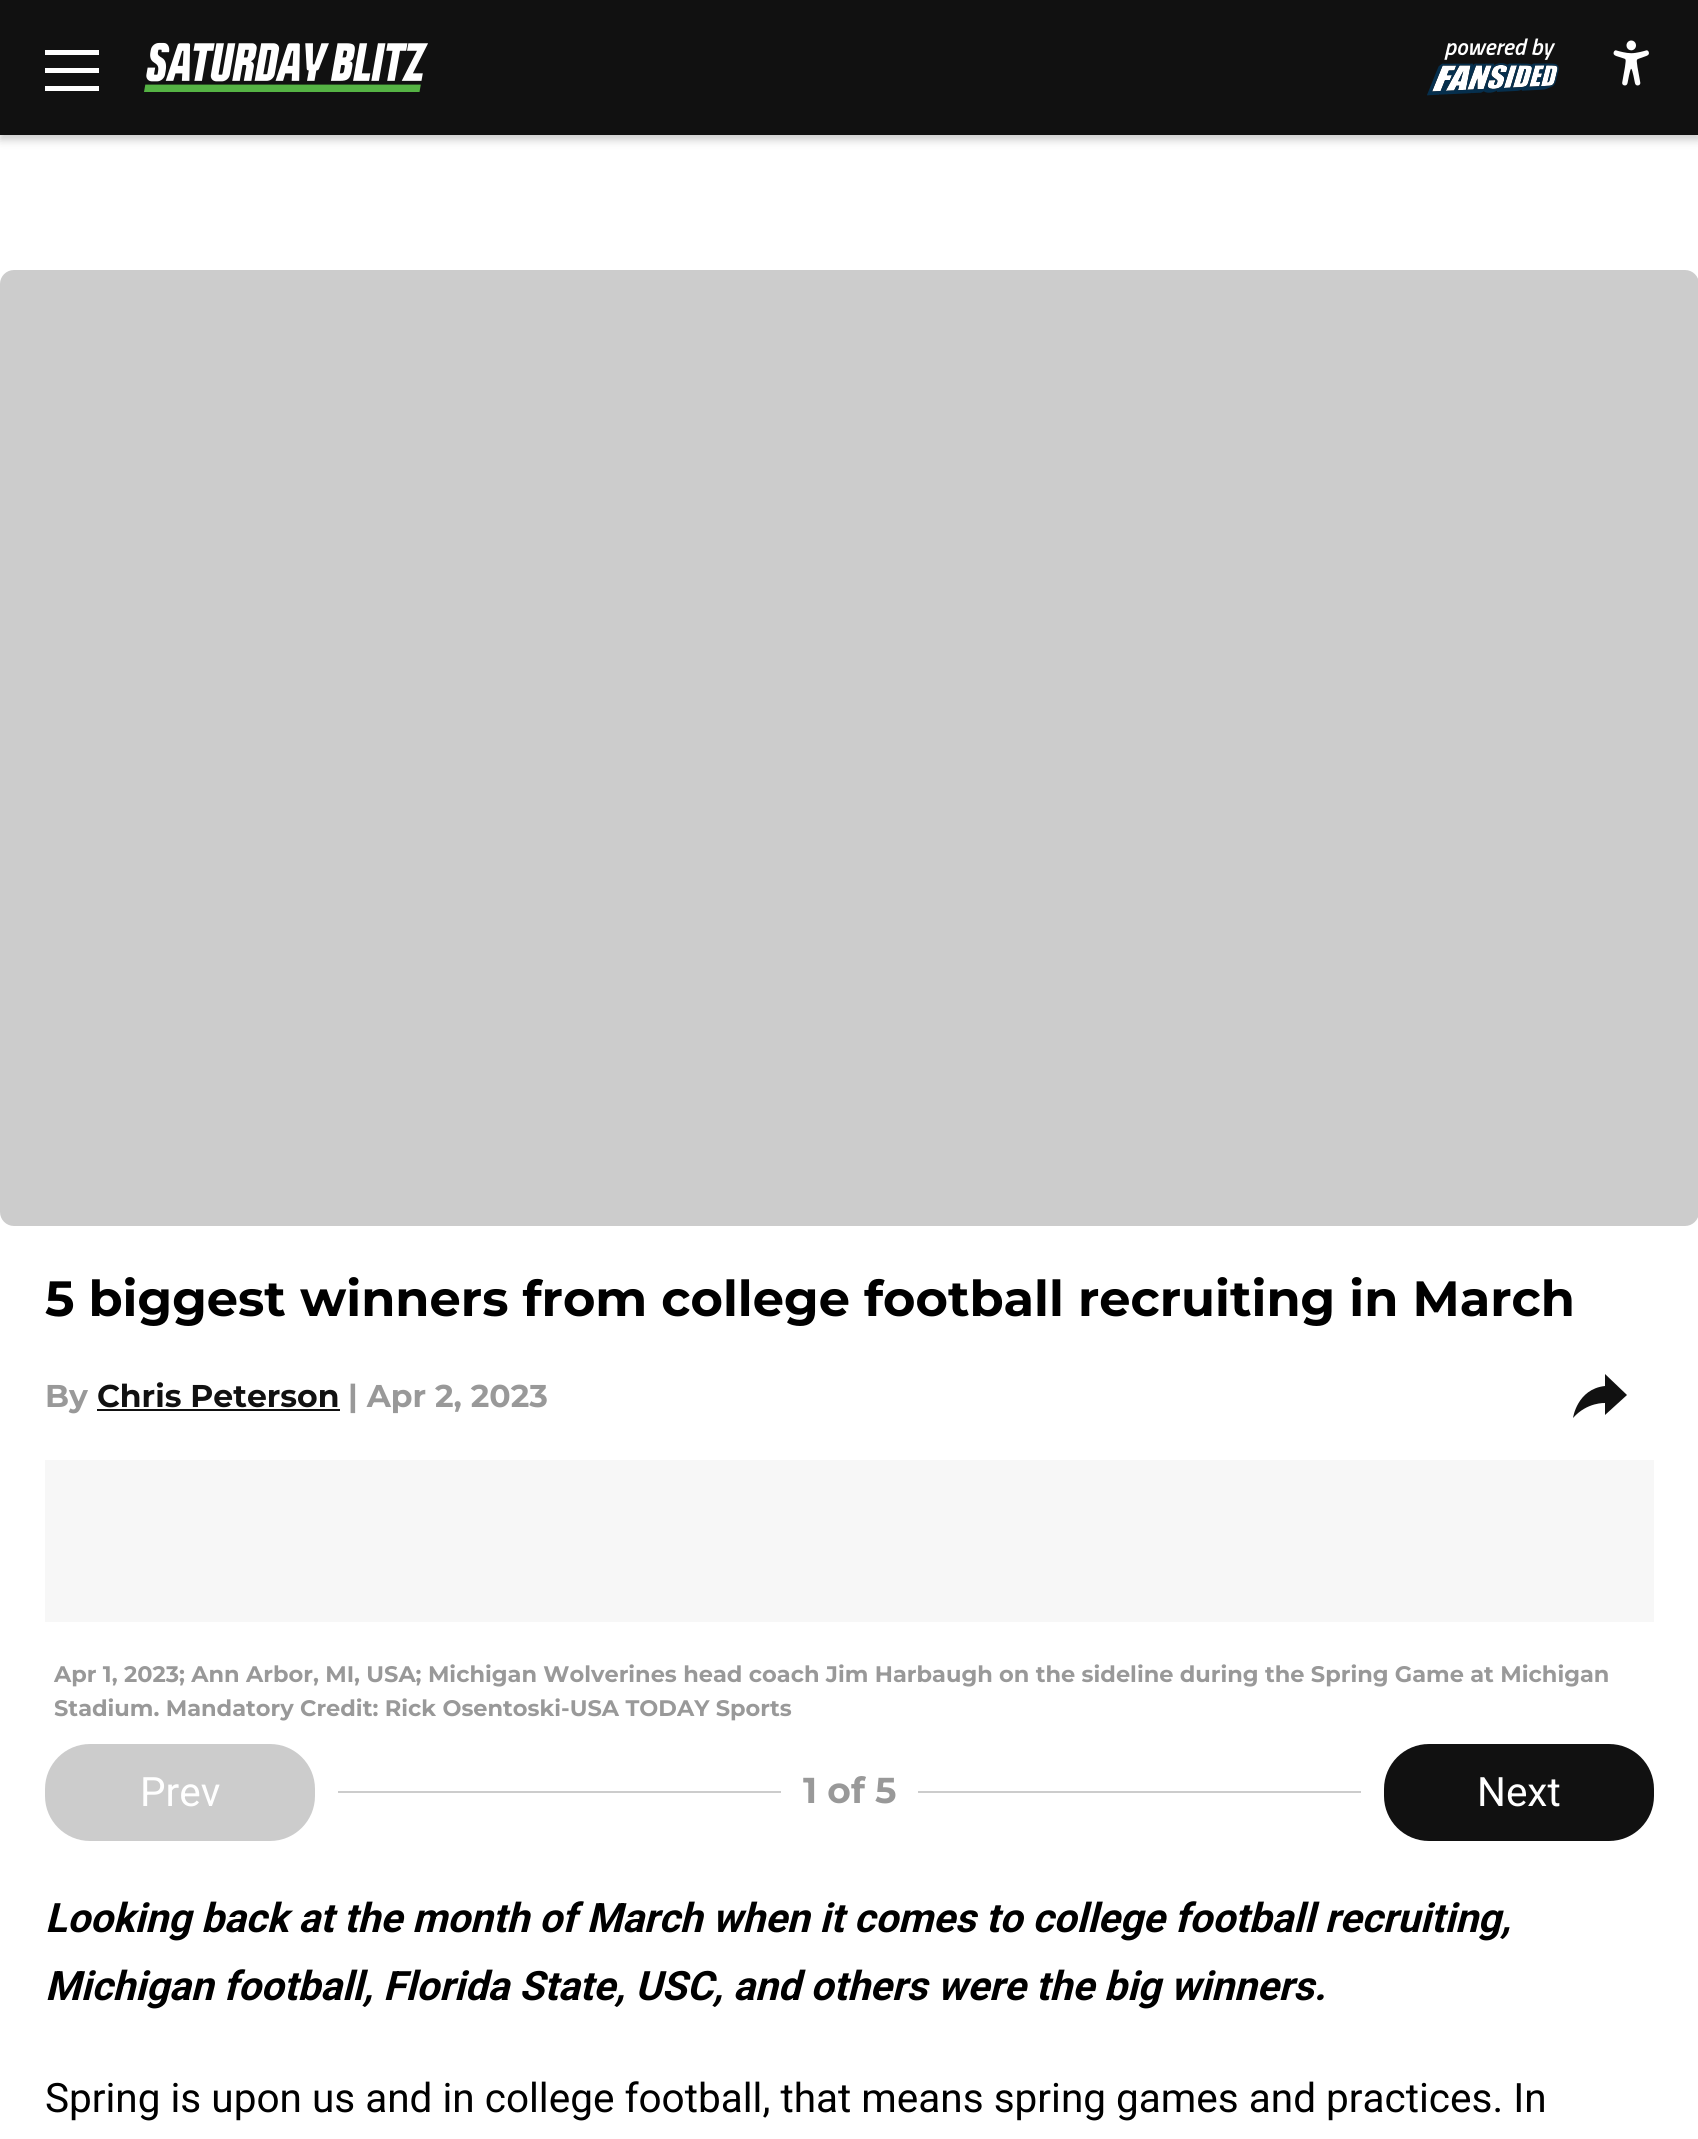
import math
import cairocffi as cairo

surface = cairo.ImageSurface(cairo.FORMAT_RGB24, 1698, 2139)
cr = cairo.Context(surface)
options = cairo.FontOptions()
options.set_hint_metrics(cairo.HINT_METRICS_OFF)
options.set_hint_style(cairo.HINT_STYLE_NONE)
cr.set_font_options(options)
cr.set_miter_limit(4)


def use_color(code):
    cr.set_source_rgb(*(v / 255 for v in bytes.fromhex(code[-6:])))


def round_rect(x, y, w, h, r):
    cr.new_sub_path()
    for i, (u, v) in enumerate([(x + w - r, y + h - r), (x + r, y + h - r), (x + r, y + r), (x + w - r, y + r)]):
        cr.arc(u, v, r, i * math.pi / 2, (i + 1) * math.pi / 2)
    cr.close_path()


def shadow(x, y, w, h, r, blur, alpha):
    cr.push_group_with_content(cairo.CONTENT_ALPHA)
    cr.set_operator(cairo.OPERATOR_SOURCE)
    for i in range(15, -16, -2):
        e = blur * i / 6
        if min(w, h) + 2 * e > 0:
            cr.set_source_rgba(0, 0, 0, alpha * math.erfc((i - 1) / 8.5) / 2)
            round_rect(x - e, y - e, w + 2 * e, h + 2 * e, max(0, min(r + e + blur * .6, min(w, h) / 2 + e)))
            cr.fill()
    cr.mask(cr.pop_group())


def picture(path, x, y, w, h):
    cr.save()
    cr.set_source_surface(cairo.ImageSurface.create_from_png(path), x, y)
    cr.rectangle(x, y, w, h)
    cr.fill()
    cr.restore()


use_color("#ffffff")
cr.paint()
use_color("#000000")
shadow(0, 5, 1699, 135, 0, 4.5, 0.2)
use_color("#111111")
cr.rectangle(0, 0, 1698, 135)
cr.fill()
use_color("#ffffff")
cr.rectangle(45, 50, 54, 5)
cr.fill()
cr.rectangle(45, 68, 54, 5)
cr.fill()
cr.rectangle(45, 86, 54, 5)
cr.fill()
picture("img1.png", 144, 42, 284, 50)
picture("img2.png", 1427, 38, 132, 58)
picture("img3.png", 1613, 40, 36, 46)
use_color("#cccccc")
round_rect(0, 270, 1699, 956, 14)
cr.fill()
cr.select_font_face("Montserrat Thin")
cr.set_font_size(49.5)
use_color("#000000")
cr.move_to(45, 1316)
cr.show_text("5 biggest winners from college football recruiting in March")
cr.set_font_size(31.5)
use_color("#999999")
cr.move_to(45, 1407)
cr.show_text("By")
use_color("#111111")
cr.move_to(97, 1407)
cr.show_text("Chris Peterson")
cr.rectangle(97, 1409, 243, 2)
cr.fill()
use_color("#999999")
cr.move_to(348, 1407)
cr.show_text("| Apr 2, 2023")
use_color("#111111")
cr.new_path()
cr.move_to(1605, 1415)
cr.line_to(1605, 1403)
cr.curve_to(1605, 1403, 1587, 1402, 1573, 1418)
cr.curve_to(1573, 1418, 1577, 1389, 1605, 1386)
cr.line_to(1605, 1374)
cr.line_to(1627, 1395)
cr.close_path()
cr.fill()
use_color("#f7f7f7")
cr.rectangle(45, 1460, 1609, 162)
cr.fill()
cr.set_font_size(22.5)
use_color("#999999")
cr.move_to(54, 1682)
cr.show_text("Apr 1, 2023; Ann Arbor, MI, USA; Michigan Wolverines head coach Jim Harbaugh on the sideline during the Spring Game at Michigan")
cr.move_to(54, 1716)
cr.show_text("Stadium. Mandatory Credit: Rick Osentoski-USA TODAY Sports")
use_color("#cccccc")
round_rect(45, 1744, 270, 97, 45)
cr.fill()
cr.select_font_face("Roboto")
cr.set_font_size(40.5)
use_color("#ffffff")
cr.move_to(140, 1806)
cr.show_text("Prev")
use_color("#cccccc")
cr.rectangle(338, 1791, 443, 2)
cr.fill()
cr.select_font_face("Montserrat Thin")
cr.set_font_size(36)
use_color("#999999")
cr.move_to(803, 1803)
cr.show_text("1 of 5")
use_color("#cccccc")
cr.rectangle(918, 1791, 443, 2)
cr.fill()
use_color("#111111")
round_rect(1384, 1744, 270, 97, 45)
cr.fill()
cr.select_font_face("Roboto")
cr.set_font_size(40.5)
use_color("#ffffff")
cr.move_to(1477, 1806)
cr.show_text("Next")
cr.select_font_face("Roboto", cairo.FONT_SLANT_ITALIC, cairo.FONT_WEIGHT_BOLD)
use_color("#000000")
cr.move_to(45, 1932)
cr.show_text("Looking back at the month of March when it comes to college football recruiting,")
cr.move_to(45, 2000)
cr.show_text("Michigan football, Florida State, USC, and others were the big winners.")
cr.select_font_face("Roboto")
cr.move_to(45, 2112)
cr.show_text("Spring is upon us and in college football, that means spring games and practices. In")
surface.write_to_png("result.png")
